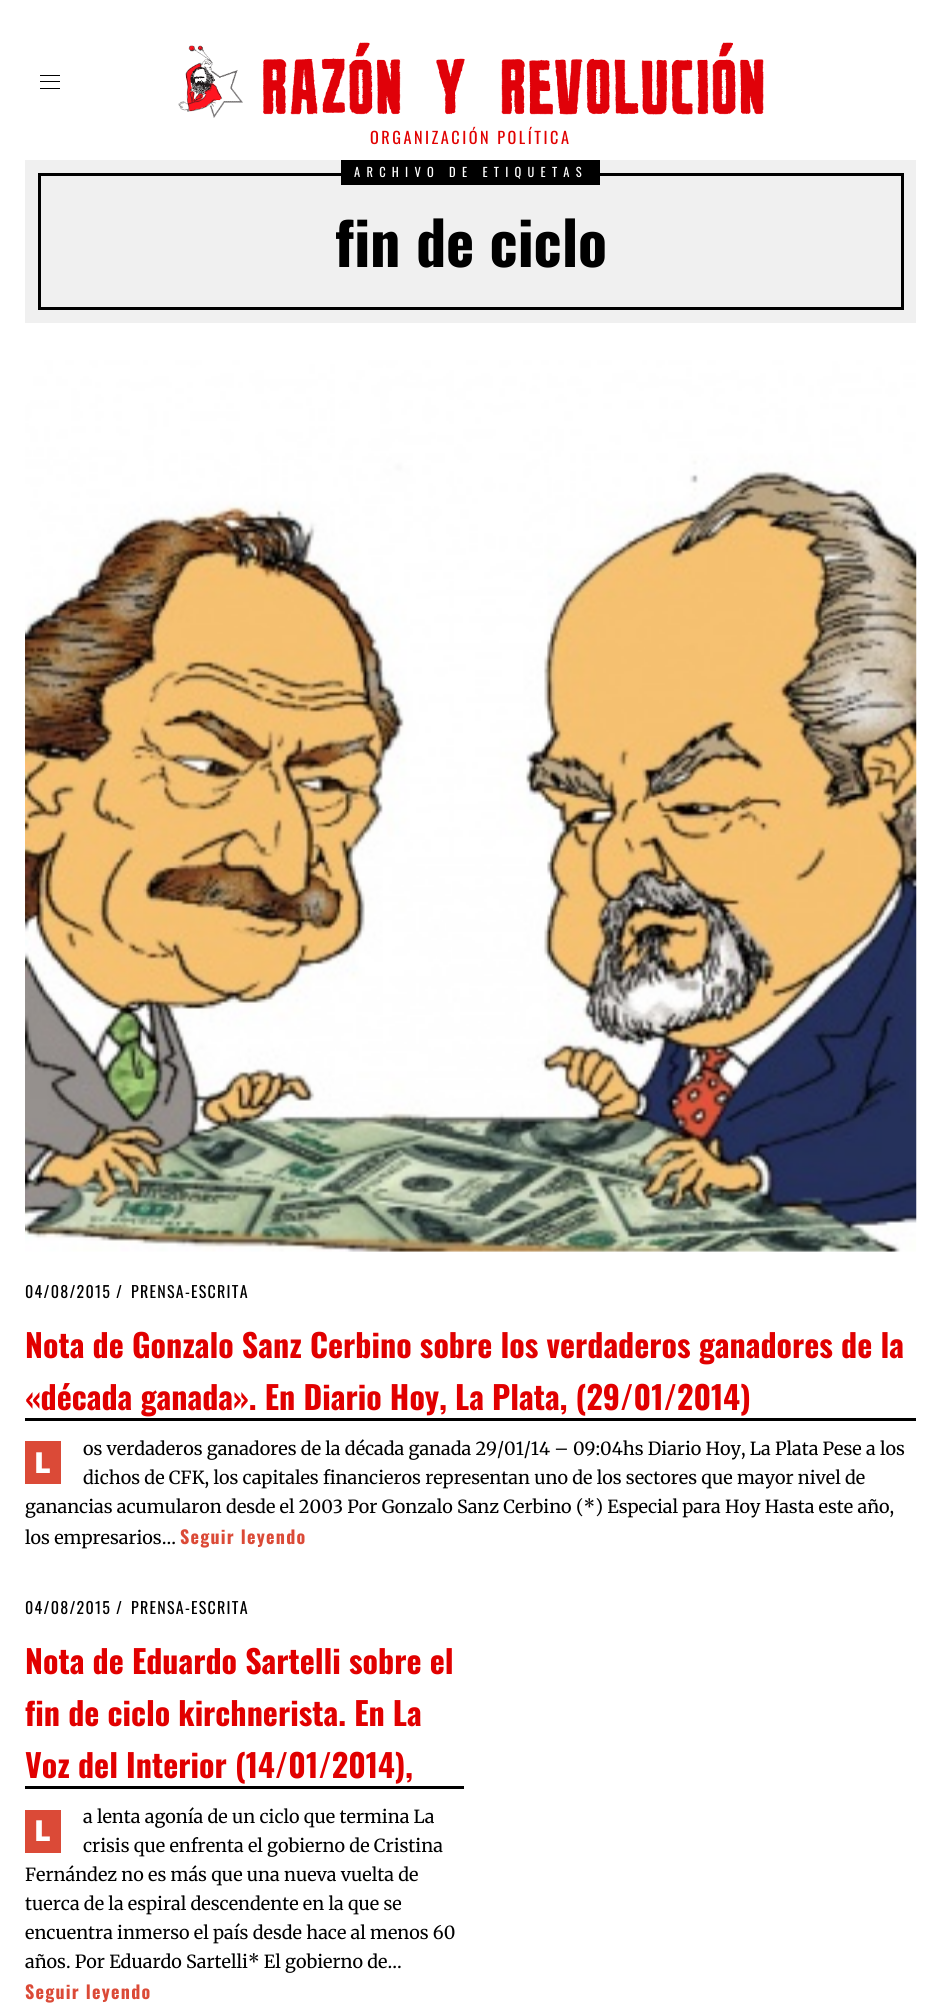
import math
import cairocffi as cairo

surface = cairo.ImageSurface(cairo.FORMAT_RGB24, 941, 2016)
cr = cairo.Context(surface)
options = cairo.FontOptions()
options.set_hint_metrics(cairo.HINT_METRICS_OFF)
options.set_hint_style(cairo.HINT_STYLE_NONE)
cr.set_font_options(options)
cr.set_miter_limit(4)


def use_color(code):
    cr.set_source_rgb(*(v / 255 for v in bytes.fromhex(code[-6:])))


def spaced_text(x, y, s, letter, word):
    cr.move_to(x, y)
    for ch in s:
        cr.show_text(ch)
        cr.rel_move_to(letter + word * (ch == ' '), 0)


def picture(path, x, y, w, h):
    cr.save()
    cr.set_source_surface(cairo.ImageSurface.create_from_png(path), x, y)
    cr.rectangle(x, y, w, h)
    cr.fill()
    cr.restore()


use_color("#ffffff")
cr.paint()
use_color("#000000")
cr.rectangle(40, 75, 20, 1)
cr.fill()
cr.rectangle(40, 81, 20, 1)
cr.fill()
cr.rectangle(40, 88, 20, 1)
cr.fill()
picture("img1.png", 178, 42, 586, 76)
cr.select_font_face("Oswald")
cr.set_font_size(16.25)
use_color("#e10000")
spaced_text(370, 144, "ORGANIZACIÓN POLÍTICA", 2.5, 0)
use_color("#f0f0f0")
cr.rectangle(25, 160, 891, 163)
cr.fill()
cr.rectangle(39.5, 174.5, 863, 134)
use_color("#000000")
cr.set_line_width(3)
cr.stroke()
cr.rectangle(341, 160, 259, 25)
cr.fill()
cr.set_font_size(12.5)
use_color("#ffffff")
spaced_text(354, 177, "ARCHIVO DE ETIQUETAS", 6.25, 0)
cr.select_font_face("Oswald", cairo.FONT_SLANT_NORMAL, cairo.FONT_WEIGHT_BOLD)
cr.set_font_size(60)
use_color("#000000")
cr.move_to(335, 267)
cr.show_text("fin de ciclo")
picture("img2.png", 25, 360, 892, 892)
cr.rectangle(25, 1418, 891, 3)
cr.fill()
cr.select_font_face("Oswald")
cr.set_font_size(16)
spaced_text(25, 1298, "04/08/2015 /", 1.25, 0)
spaced_text(131, 1298, "PRENSA-ESCRITA", 1.25, 0)
cr.select_font_face("Oswald", cairo.FONT_SLANT_NORMAL, cairo.FONT_WEIGHT_BOLD)
cr.set_font_size(32)
use_color("#e10000")
cr.move_to(25, 1358)
cr.show_text("Nota de Gonzalo Sanz Cerbino sobre los verdaderos ganadores de la")
cr.move_to(25, 1410)
cr.show_text("«década ganada». En Diario Hoy, La Plata, (29/01/2014)")
cr.select_font_face("Merriweather")
cr.set_font_size(18)
use_color("#000000")
cr.move_to(83, 1455)
cr.show_text("os verdaderos ganadores de la década ganada 29/01/14 – 09:04hs Diario Hoy, La Plata Pese a los")
cr.move_to(83, 1484)
cr.show_text("dichos de CFK, los capitales financieros representan uno de los sectores que mayor nivel de")
cr.move_to(25, 1513)
cr.show_text("ganancias acumularon desde el 2003 Por Gonzalo Sanz Cerbino (*) Especial para Hoy Hasta este año,")
cr.move_to(25, 1544)
cr.show_text("los empresarios…")
cr.select_font_face("Oswald", cairo.FONT_SLANT_NORMAL, cairo.FONT_WEIGHT_BOLD)
use_color("#db4a37")
spaced_text(180, 1544, "Seguir leyendo", 1.25, 0)
cr.rectangle(25, 1441, 36, 43)
cr.fill()
cr.select_font_face("Noto Sans Black")
cr.set_font_size(29)
use_color("#ffffff")
cr.move_to(34, 1473)
cr.show_text("L")
use_color("#000000")
cr.rectangle(25, 1786, 439, 3)
cr.fill()
cr.select_font_face("Oswald")
cr.set_font_size(16)
spaced_text(25, 1614, "04/08/2015 /", 1.25, 0)
spaced_text(131, 1614, "PRENSA-ESCRITA", 1.25, 0)
cr.select_font_face("Oswald", cairo.FONT_SLANT_NORMAL, cairo.FONT_WEIGHT_BOLD)
cr.set_font_size(32)
use_color("#e10000")
cr.move_to(25, 1674)
cr.show_text("Nota de Eduardo Sartelli sobre el")
cr.move_to(25, 1726)
cr.show_text("fin de ciclo kirchnerista. En La")
cr.move_to(25, 1778)
cr.show_text("Voz del Interior (14/01/2014),")
cr.select_font_face("Merriweather")
cr.set_font_size(18)
use_color("#000000")
cr.move_to(83, 1823)
cr.show_text("a lenta agonía de un ciclo que termina La")
cr.move_to(83, 1852)
cr.show_text("crisis que enfrenta el gobierno de Cristina")
cr.move_to(25, 1881)
cr.show_text("Fernández no es más que una nueva vuelta de")
cr.move_to(25, 1910)
cr.show_text("tuerca de la espiral descendente en la que se")
cr.move_to(25, 1939)
cr.show_text("encuentra inmerso el país desde hace al menos 60")
cr.move_to(25, 1968)
cr.show_text("años. Por Eduardo Sartelli* El gobierno de…")
cr.select_font_face("Oswald", cairo.FONT_SLANT_NORMAL, cairo.FONT_WEIGHT_BOLD)
use_color("#db4a37")
spaced_text(25, 1999, "Seguir leyendo", 1.25, 0)
cr.rectangle(25, 1810, 36, 43)
cr.fill()
cr.select_font_face("Noto Sans Black")
cr.set_font_size(29)
use_color("#ffffff")
cr.move_to(34, 1841)
cr.show_text("L")
surface.write_to_png("result.png")
